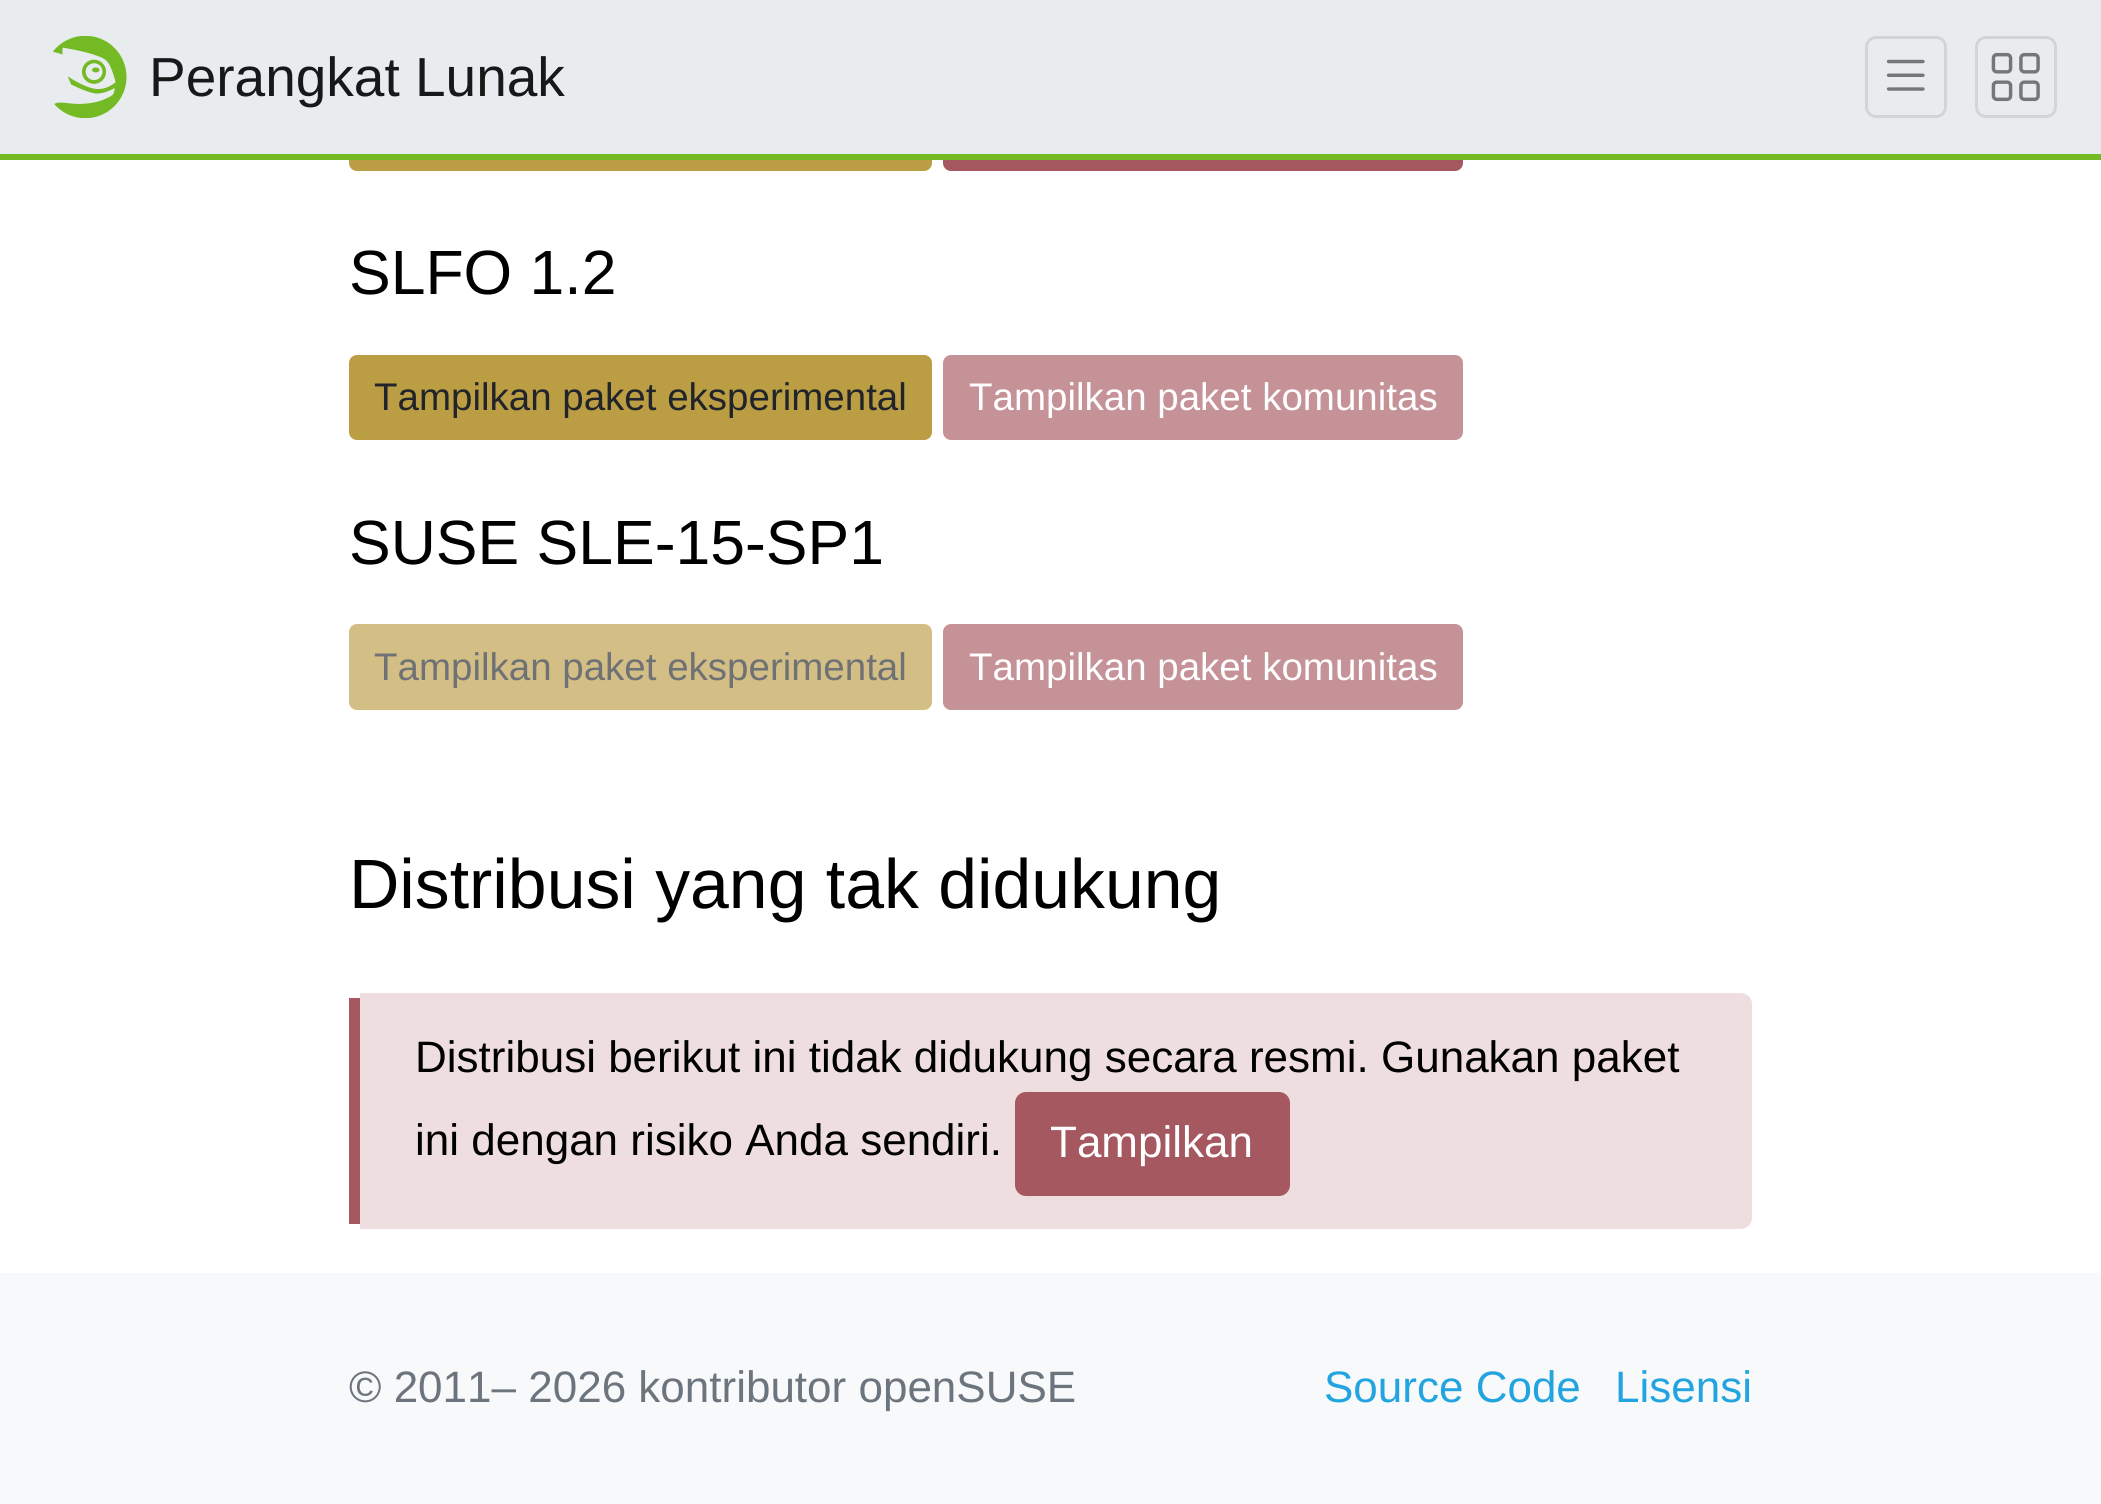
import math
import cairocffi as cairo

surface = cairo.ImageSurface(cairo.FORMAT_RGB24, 2101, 1504)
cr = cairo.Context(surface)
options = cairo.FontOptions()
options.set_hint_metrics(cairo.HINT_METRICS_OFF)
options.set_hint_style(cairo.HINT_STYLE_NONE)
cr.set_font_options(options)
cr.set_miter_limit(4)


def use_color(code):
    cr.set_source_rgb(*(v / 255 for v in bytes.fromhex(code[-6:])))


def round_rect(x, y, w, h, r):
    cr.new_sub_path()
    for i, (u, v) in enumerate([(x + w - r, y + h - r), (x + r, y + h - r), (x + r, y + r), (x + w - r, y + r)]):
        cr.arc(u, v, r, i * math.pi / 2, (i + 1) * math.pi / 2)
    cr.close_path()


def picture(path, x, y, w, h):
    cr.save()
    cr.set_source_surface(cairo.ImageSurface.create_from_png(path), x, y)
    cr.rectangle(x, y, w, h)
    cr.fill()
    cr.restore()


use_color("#ffffff")
cr.paint()
use_color("#bb9d43")
round_rect(350.5, 86.5, 580, 83, 6.5)
cr.fill_preserve()
cr.set_line_width(3)
cr.stroke()
use_color("#a55860")
round_rect(944.5, 86.5, 517, 83, 6.5)
cr.fill_preserve()
cr.stroke()
use_color("#e9ecef")
cr.rectangle(0, 0, 2101, 154)
cr.fill()
use_color("#73ba25")
cr.rectangle(0, 154, 2101, 6)
cr.fill()
picture("img1.png", 52, 36, 75, 82)
cr.select_font_face("Liberation Sans")
cr.set_font_size(55)
use_color("#171818")
cr.move_to(149, 96)
cr.show_text("Perangkat Lunak")
round_rect(1866.5, 37.5, 79, 79, 9.5)
use_color("#d2d4d7")
cr.stroke()
picture("img2.png", 1886, 59, 39, 32)
round_rect(1976.5, 37.5, 79, 79, 9.5)
cr.stroke()
picture("img3.png", 1991, 52, 49, 50)
cr.set_font_size(62.5)
use_color("#000000")
cr.move_to(349, 294)
cr.show_text("SLFO 1.2")
use_color("#bb9d43")
round_rect(350.5, 356.5, 580, 82, 6.5)
cr.fill_preserve()
cr.stroke()
cr.set_font_size(38.5)
use_color("#212529")
cr.move_to(374, 410)
cr.show_text("Tampilkan paket eksperimental")
use_color("#c59298")
round_rect(944.5, 356.5, 517, 82, 6.5)
cr.fill_preserve()
cr.stroke()
use_color("#ffffff")
cr.move_to(969, 410)
cr.show_text("Tampilkan paket komunitas")
cr.set_font_size(62.5)
use_color("#000000")
cr.move_to(349, 564)
cr.show_text("SUSE SLE-15-SP1")
use_color("#d3bf85")
round_rect(350.5, 625.5, 580, 83, 6.5)
cr.fill_preserve()
cr.stroke()
cr.set_font_size(38.5)
use_color("#6f7174")
cr.move_to(374, 680)
cr.show_text("Tampilkan paket eksperimental")
use_color("#c59298")
round_rect(944.5, 625.5, 517, 83, 6.5)
cr.fill_preserve()
cr.stroke()
use_color("#ffffff")
cr.move_to(969, 680)
cr.show_text("Tampilkan paket komunitas")
cr.set_font_size(69.75)
use_color("#000000")
cr.move_to(349, 908)
cr.show_text("Distribusi yang tak didukung")
use_color("#eedee0")
cr.new_path()
cr.move_to(360, 993)
cr.line_to(1741, 993)
cr.curve_to(1747, 993, 1752, 998, 1752, 1004)
cr.line_to(1752, 1218)
cr.curve_to(1752, 1224, 1747, 1229, 1741, 1229)
cr.line_to(360, 1229)
cr.close_path()
cr.fill()
use_color("#a55860")
cr.rectangle(349, 998, 11, 226)
cr.fill()
cr.set_font_size(44)
use_color("#000000")
cr.move_to(415, 1072)
cr.show_text("Distribusi berikut ini tidak didukung secara resmi. Gunakan paket")
cr.move_to(415, 1155)
cr.show_text("ini dengan risiko Anda sendiri.")
use_color("#a55860")
round_rect(1016.5, 1093.5, 272, 101, 9.5)
cr.fill_preserve()
cr.stroke()
use_color("#ffffff")
cr.move_to(1050, 1157)
cr.show_text("Tampilkan")
use_color("#f8f9fa")
cr.rectangle(0, 1273, 2101, 231)
cr.fill()
use_color("#6c757d")
cr.move_to(349, 1402)
cr.show_text("© 2011– 2026 kontributor openSUSE")
use_color("#21a4df")
cr.move_to(1324, 1402)
cr.show_text("Source Code")
cr.move_to(1615, 1402)
cr.show_text("Lisensi")
surface.write_to_png("result.png")
